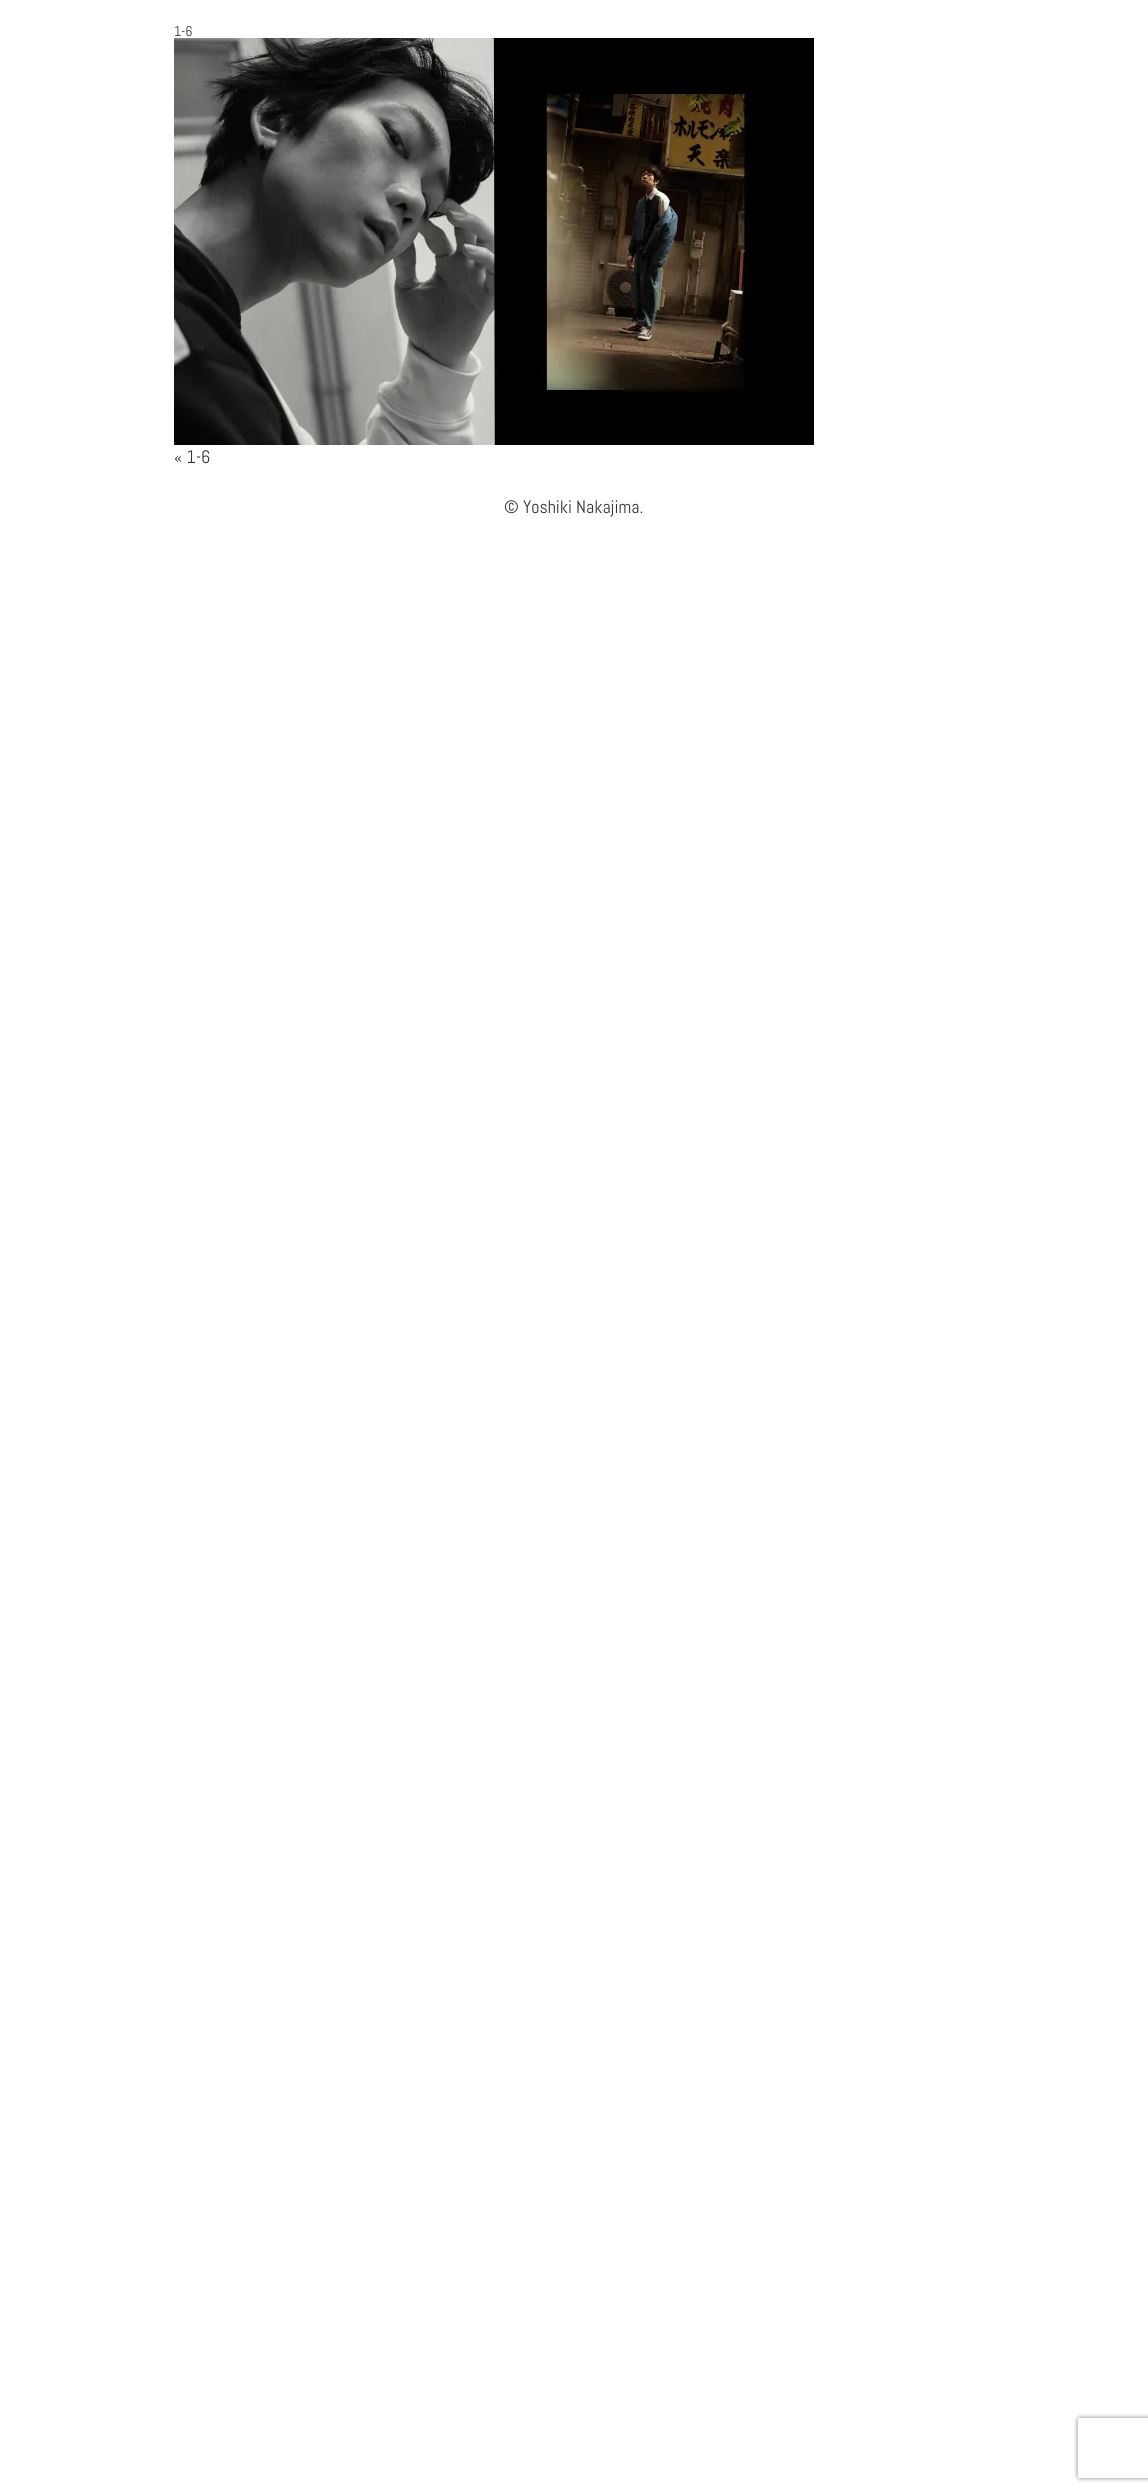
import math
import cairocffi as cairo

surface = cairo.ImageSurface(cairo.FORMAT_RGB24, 1148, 2492)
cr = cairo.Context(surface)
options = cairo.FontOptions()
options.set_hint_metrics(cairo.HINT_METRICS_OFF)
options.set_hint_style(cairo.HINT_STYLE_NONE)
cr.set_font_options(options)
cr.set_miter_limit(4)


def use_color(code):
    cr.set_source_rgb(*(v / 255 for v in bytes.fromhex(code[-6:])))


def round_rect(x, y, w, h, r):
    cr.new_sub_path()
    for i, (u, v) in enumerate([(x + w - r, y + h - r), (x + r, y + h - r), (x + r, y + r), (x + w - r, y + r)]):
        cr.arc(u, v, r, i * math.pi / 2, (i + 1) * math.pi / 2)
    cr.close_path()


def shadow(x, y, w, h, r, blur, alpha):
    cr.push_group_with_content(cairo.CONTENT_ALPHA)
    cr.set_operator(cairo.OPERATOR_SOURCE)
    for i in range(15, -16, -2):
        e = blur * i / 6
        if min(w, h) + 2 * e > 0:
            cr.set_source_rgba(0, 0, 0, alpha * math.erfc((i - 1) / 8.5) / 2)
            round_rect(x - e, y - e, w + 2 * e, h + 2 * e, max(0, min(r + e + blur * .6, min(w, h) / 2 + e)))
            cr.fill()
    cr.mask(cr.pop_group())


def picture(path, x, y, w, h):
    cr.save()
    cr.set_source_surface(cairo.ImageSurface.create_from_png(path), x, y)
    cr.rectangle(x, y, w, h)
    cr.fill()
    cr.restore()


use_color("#ffffff")
cr.paint()
cr.select_font_face("Abel")
cr.set_font_size(14)
use_color("#333333")
cr.move_to(174, 36)
cr.show_text("1-6")
picture("img1.png", 174, 38, 640, 407)
cr.set_font_size(18)
cr.move_to(174, 463)
cr.show_text("« 1-6")
cr.move_to(504, 513)
cr.show_text("© Yoshiki Nakajima.")
cr.save()
cr.set_fill_rule(cairo.FILL_RULE_EVEN_ODD)
cr.new_path()
cr.move_to(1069, 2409)
cr.line_to(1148, 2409)
cr.line_to(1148, 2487)
cr.line_to(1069, 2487)
cr.close_path()
cr.move_to(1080, 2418)
cr.line_to(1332, 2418)
cr.curve_to(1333, 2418, 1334, 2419, 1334, 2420)
cr.line_to(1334, 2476)
cr.curve_to(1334, 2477, 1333, 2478, 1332, 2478)
cr.line_to(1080, 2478)
cr.curve_to(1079, 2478, 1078, 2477, 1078, 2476)
cr.line_to(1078, 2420)
cr.curve_to(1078, 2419, 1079, 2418, 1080, 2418)
cr.close_path()
cr.clip()
use_color("#808080")
shadow(1078, 2418, 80, 60, 2, 2.5, 1)
cr.restore()
surface.write_to_png("result.png")
